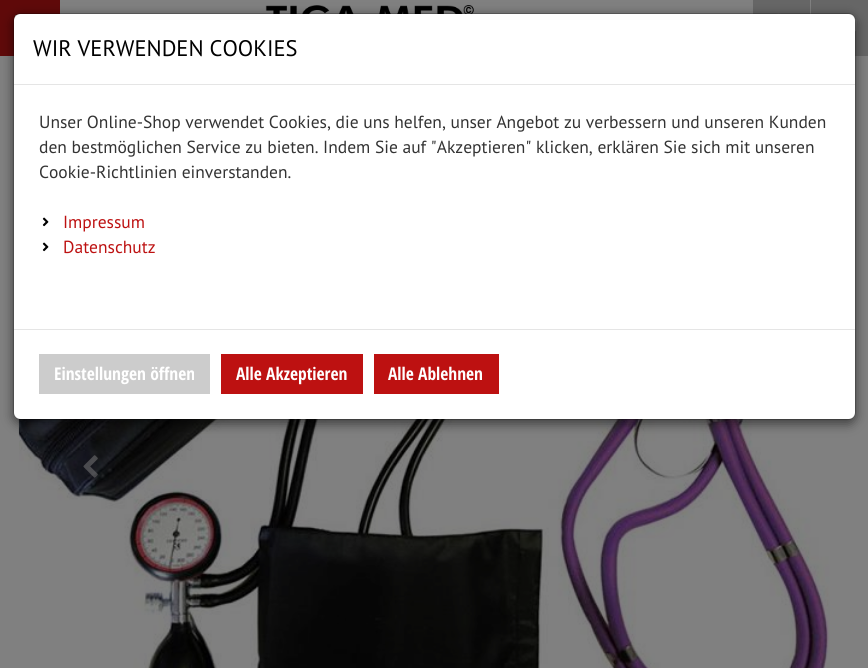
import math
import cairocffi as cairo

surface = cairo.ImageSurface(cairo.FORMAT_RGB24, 868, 668)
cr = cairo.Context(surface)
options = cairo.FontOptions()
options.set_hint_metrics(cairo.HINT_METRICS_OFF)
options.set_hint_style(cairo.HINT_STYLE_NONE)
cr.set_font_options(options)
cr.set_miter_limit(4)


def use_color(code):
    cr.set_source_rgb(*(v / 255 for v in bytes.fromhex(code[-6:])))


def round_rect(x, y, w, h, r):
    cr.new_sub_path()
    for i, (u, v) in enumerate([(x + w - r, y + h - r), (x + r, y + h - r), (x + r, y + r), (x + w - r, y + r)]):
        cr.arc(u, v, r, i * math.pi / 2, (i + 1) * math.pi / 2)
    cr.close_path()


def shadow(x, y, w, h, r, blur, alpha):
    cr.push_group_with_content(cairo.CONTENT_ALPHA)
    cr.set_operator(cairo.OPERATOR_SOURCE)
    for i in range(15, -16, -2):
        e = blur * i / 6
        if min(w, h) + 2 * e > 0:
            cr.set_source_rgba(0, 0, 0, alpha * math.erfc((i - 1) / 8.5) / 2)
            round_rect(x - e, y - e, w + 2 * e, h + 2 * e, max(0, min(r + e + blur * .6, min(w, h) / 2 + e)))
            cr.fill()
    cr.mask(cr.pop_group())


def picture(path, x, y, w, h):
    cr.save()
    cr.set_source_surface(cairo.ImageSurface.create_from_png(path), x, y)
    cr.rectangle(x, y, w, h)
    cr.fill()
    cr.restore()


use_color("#808080")
cr.paint()
use_color("#5f0909")
cr.rectangle(0, 0, 60, 56)
cr.fill()
picture("img1.png", 15, 15, 2, 2)
picture("img2.png", 243, 5, 326, 9)
use_color("#666666")
cr.rectangle(753, 0, 57, 14)
cr.fill()
picture("img3.png", 776, 13, 5, 1)
cr.rectangle(811, 0, 57, 56)
cr.fill()
picture("img4.png", 854, 18, 3, 14)
picture("img5.png", 18, 418, 812, 250)
picture("img6.png", 83, 455, 15, 23)
use_color("#000000")
shadow(13, 16, 843, 408, 8, 5.5, 0.5)
use_color("#ffffff")
round_rect(14, 14, 841, 405, 6)
cr.fill()
round_rect(13.5, 13.5, 842, 406, 7.5)
cr.set_source_rgba(0, 0, 0, 0.2)
cr.set_line_width(1)
cr.stroke()
use_color("#e5e5e5")
cr.rectangle(14, 84, 841, 1)
cr.fill()
cr.select_font_face("PT Sans")
cr.set_font_size(22.5)
use_color("#000000")
cr.move_to(33, 56)
cr.show_text("WIR VERWENDEN COOKIES")
cr.set_font_size(17.5)
use_color("#333333")
cr.move_to(39, 128)
cr.show_text("Unser Online-Shop verwendet Cookies, die uns helfen, unser Angebot zu verbessern und unseren Kunden")
cr.move_to(39, 153)
cr.show_text("den bestmöglichen Service zu bieten. Indem Sie auf \"Akzeptieren\" klicken, erklären Sie sich mit unseren")
cr.move_to(39, 178)
cr.show_text("Cookie-Richtlinien einverstanden.")
picture("img7.png", 42, 217, 7, 10)
use_color("#bd1111")
cr.move_to(63, 228)
cr.show_text("Impressum")
picture("img7.png", 42, 242, 7, 10)
cr.move_to(63, 253)
cr.show_text("Datenschutz")
use_color("#e5e5e5")
cr.rectangle(14, 329, 841, 1)
cr.fill()
use_color("#cccccc")
cr.rectangle(39, 354, 171, 40)
cr.fill()
cr.select_font_face("Open Sans Condensed", cairo.FONT_SLANT_NORMAL, cairo.FONT_WEIGHT_BOLD)
use_color("#ffffff")
cr.move_to(54, 380)
cr.show_text("Einstellungen öffnen")
use_color("#bd1111")
cr.rectangle(221, 354, 142, 40)
cr.fill()
use_color("#ffffff")
cr.move_to(236, 380)
cr.show_text("Alle Akzeptieren")
use_color("#bd1111")
cr.rectangle(374, 354, 125, 40)
cr.fill()
use_color("#ffffff")
cr.move_to(388, 380)
cr.show_text("Alle Ablehnen")
surface.write_to_png("result.png")
